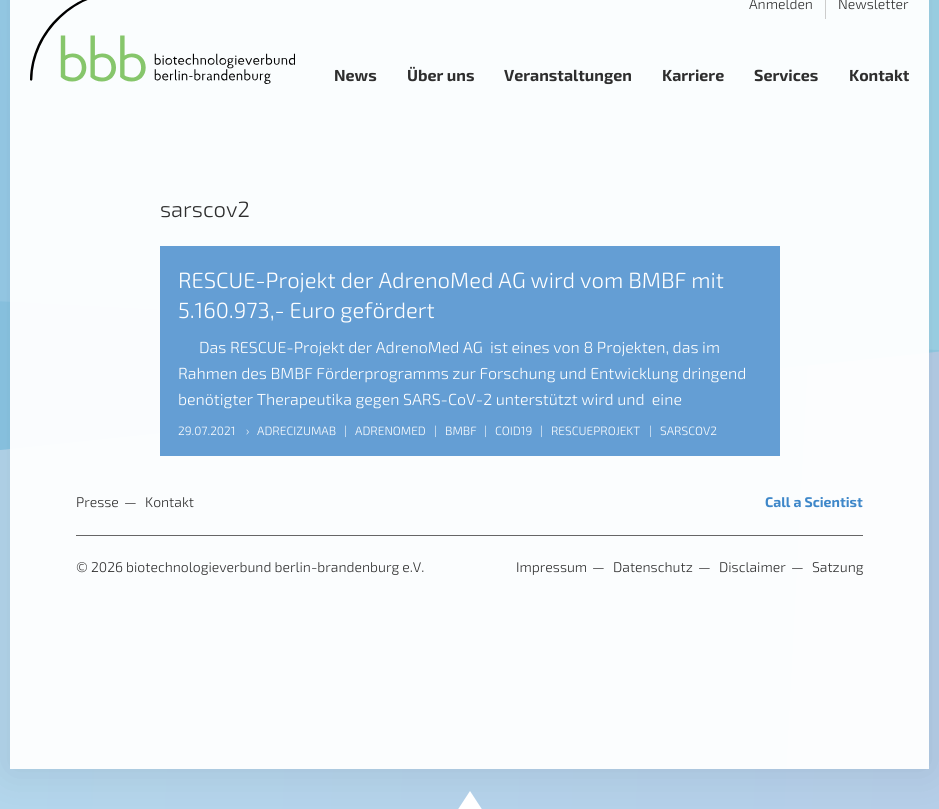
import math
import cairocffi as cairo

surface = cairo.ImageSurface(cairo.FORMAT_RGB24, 939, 809)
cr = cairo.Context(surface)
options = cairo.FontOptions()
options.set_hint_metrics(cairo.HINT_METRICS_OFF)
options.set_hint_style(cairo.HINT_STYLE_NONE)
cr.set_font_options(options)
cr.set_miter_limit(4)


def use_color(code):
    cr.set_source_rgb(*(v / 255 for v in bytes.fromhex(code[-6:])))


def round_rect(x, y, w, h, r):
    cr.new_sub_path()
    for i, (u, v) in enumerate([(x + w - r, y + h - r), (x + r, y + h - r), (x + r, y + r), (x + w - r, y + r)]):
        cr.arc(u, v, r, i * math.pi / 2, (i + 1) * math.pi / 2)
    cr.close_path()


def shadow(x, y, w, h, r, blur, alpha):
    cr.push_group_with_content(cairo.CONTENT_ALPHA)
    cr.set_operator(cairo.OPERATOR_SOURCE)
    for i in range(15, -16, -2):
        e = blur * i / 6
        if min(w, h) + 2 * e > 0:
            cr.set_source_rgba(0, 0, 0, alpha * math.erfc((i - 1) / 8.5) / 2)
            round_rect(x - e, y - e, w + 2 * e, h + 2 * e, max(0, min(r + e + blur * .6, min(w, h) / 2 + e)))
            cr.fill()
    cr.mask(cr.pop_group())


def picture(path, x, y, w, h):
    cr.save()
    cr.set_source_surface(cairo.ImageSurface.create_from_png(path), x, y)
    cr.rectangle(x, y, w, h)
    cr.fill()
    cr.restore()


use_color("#ffffff")
cr.paint()
gradient = cairo.LinearGradient(-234, 589, 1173, 663)
gradient.add_color_stop_rgba(0, 0.702, 0.847, 0.929, 1)
gradient.add_color_stop_rgba(1, 0.71, 0.8, 0.906, 1)
cr.set_source(gradient)
cr.new_path()
cr.move_to(-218, 290)
cr.line_to(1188, 363)
cr.line_to(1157, 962)
cr.line_to(-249, 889)
cr.close_path()
cr.fill()
cr.set_source_rgba(0.506, 0.757, 0.898, 0.6)
cr.new_path()
cr.move_to(-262, -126)
cr.line_to(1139, -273)
cr.line_to(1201, 324)
cr.line_to(-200, 471)
cr.close_path()
cr.fill()
gradient = cairo.LinearGradient(-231, 173, 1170, 25)
gradient.add_color_stop_rgba(0, 0.506, 0.757, 0.898, 0.6)
gradient.add_color_stop_rgba(1, 0.573, 0.82, 0.886, 0.6)
cr.set_source(gradient)
cr.new_path()
cr.move_to(-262, -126)
cr.line_to(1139, -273)
cr.line_to(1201, 324)
cr.line_to(-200, 471)
cr.close_path()
cr.fill()
cr.save()
cr.set_fill_rule(cairo.FILL_RULE_EVEN_ODD)
cr.new_path()
cr.move_to(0, 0)
cr.line_to(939, 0)
cr.line_to(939, 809)
cr.line_to(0, 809)
cr.close_path()
cr.move_to(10, -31)
cr.line_to(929, -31)
cr.line_to(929, 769)
cr.line_to(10, 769)
cr.close_path()
cr.clip()
use_color("#000000")
shadow(10, -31, 919, 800, 0, 20, 0.1)
cr.restore()
cr.set_source_rgba(1, 1, 1, 0.95)
cr.rectangle(10, 0, 919, 769)
cr.fill()
picture("img1.png", 30, 0, 265, 84)
cr.select_font_face("Exo 2 Light")
cr.set_font_size(14)
use_color("#2e2e2e")
cr.move_to(749, 9)
cr.show_text("Anmelden")
use_color("#cccccc")
cr.rectangle(825, 0, 1, 19)
cr.fill()
use_color("#2e2e2e")
cr.move_to(838, 9)
cr.show_text("Newsletter")
cr.select_font_face("Exo 2", cairo.FONT_SLANT_NORMAL, cairo.FONT_WEIGHT_BOLD)
cr.set_font_size(16)
cr.move_to(334, 81)
cr.show_text("News")
cr.move_to(407, 81)
cr.show_text("Über uns")
cr.move_to(504, 81)
cr.show_text("Veranstaltungen")
cr.move_to(662, 81)
cr.show_text("Karriere")
cr.move_to(754, 81)
cr.show_text("Services")
cr.move_to(849, 81)
cr.show_text("Kontakt")
cr.select_font_face("Exo 2 Light")
cr.set_font_size(22)
cr.move_to(160, 217)
cr.show_text("sarscov2")
use_color("#649ed4")
cr.rectangle(160, 246, 620, 210)
cr.fill()
use_color("#ffffff")
cr.move_to(178, 288)
cr.show_text("RESCUE-Projekt der AdrenoMed AG wird vom BMBF mit")
cr.move_to(178, 318)
cr.show_text("5.160.973,- Euro gefördert")
cr.set_font_size(16)
cr.move_to(199, 353)
cr.show_text("Das RESCUE-Projekt der AdrenoMed AG  ist eines von 8 Projekten, das im")
cr.move_to(178, 379)
cr.show_text("Rahmen des BMBF Förderprogramms zur Forschung und Entwicklung dringend")
cr.move_to(178, 405)
cr.show_text("benötigter Therapeutika gegen SARS-CoV-2 unterstützt wird und  eine")
cr.set_font_size(12)
cr.move_to(178, 435)
cr.show_text("29.07.2021")
cr.move_to(246, 435)
cr.show_text("›")
cr.move_to(257, 435)
cr.show_text("ADRECIZUMAB")
cr.move_to(344, 435)
cr.show_text("|")
cr.move_to(355, 435)
cr.show_text("ADRENOMED")
cr.move_to(434, 435)
cr.show_text("|")
cr.move_to(445, 435)
cr.show_text("BMBF")
cr.move_to(484, 435)
cr.show_text("|")
cr.move_to(495, 435)
cr.show_text("COID19")
cr.move_to(540, 435)
cr.show_text("|")
cr.move_to(551, 435)
cr.show_text("RESCUEPROJEKT")
cr.move_to(649, 435)
cr.show_text("|")
cr.move_to(660, 435)
cr.show_text("SARSCOV2")
cr.set_font_size(14)
use_color("#2e2e2e")
cr.move_to(76, 507)
cr.show_text("Presse")
cr.move_to(124, 507)
cr.show_text("—")
cr.move_to(145, 507)
cr.show_text("Kontakt")
cr.select_font_face("Exo 2", cairo.FONT_SLANT_NORMAL, cairo.FONT_WEIGHT_BOLD)
use_color("#3e87c9")
cr.move_to(765, 507)
cr.show_text("Call a Scientist")
use_color("#666666")
cr.rectangle(76, 535, 787, 1)
cr.fill()
cr.select_font_face("Exo 2 Light")
use_color("#2e2e2e")
cr.move_to(76, 572)
cr.show_text("© 2026 biotechnologieverbund berlin-brandenburg e.V.")
cr.move_to(516, 572)
cr.show_text("Impressum")
cr.move_to(592, 572)
cr.show_text("—")
cr.move_to(613, 572)
cr.show_text("Datenschutz")
cr.move_to(698, 572)
cr.show_text("—")
cr.move_to(719, 572)
cr.show_text("Disclaimer")
cr.move_to(791, 572)
cr.show_text("—")
cr.move_to(812, 572)
cr.show_text("Satzung")
use_color("#ffffff")
cr.new_path()
cr.move_to(487, 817)
cr.line_to(453, 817)
cr.line_to(470, 791)
cr.close_path()
cr.fill()
surface.write_to_png("result.png")
